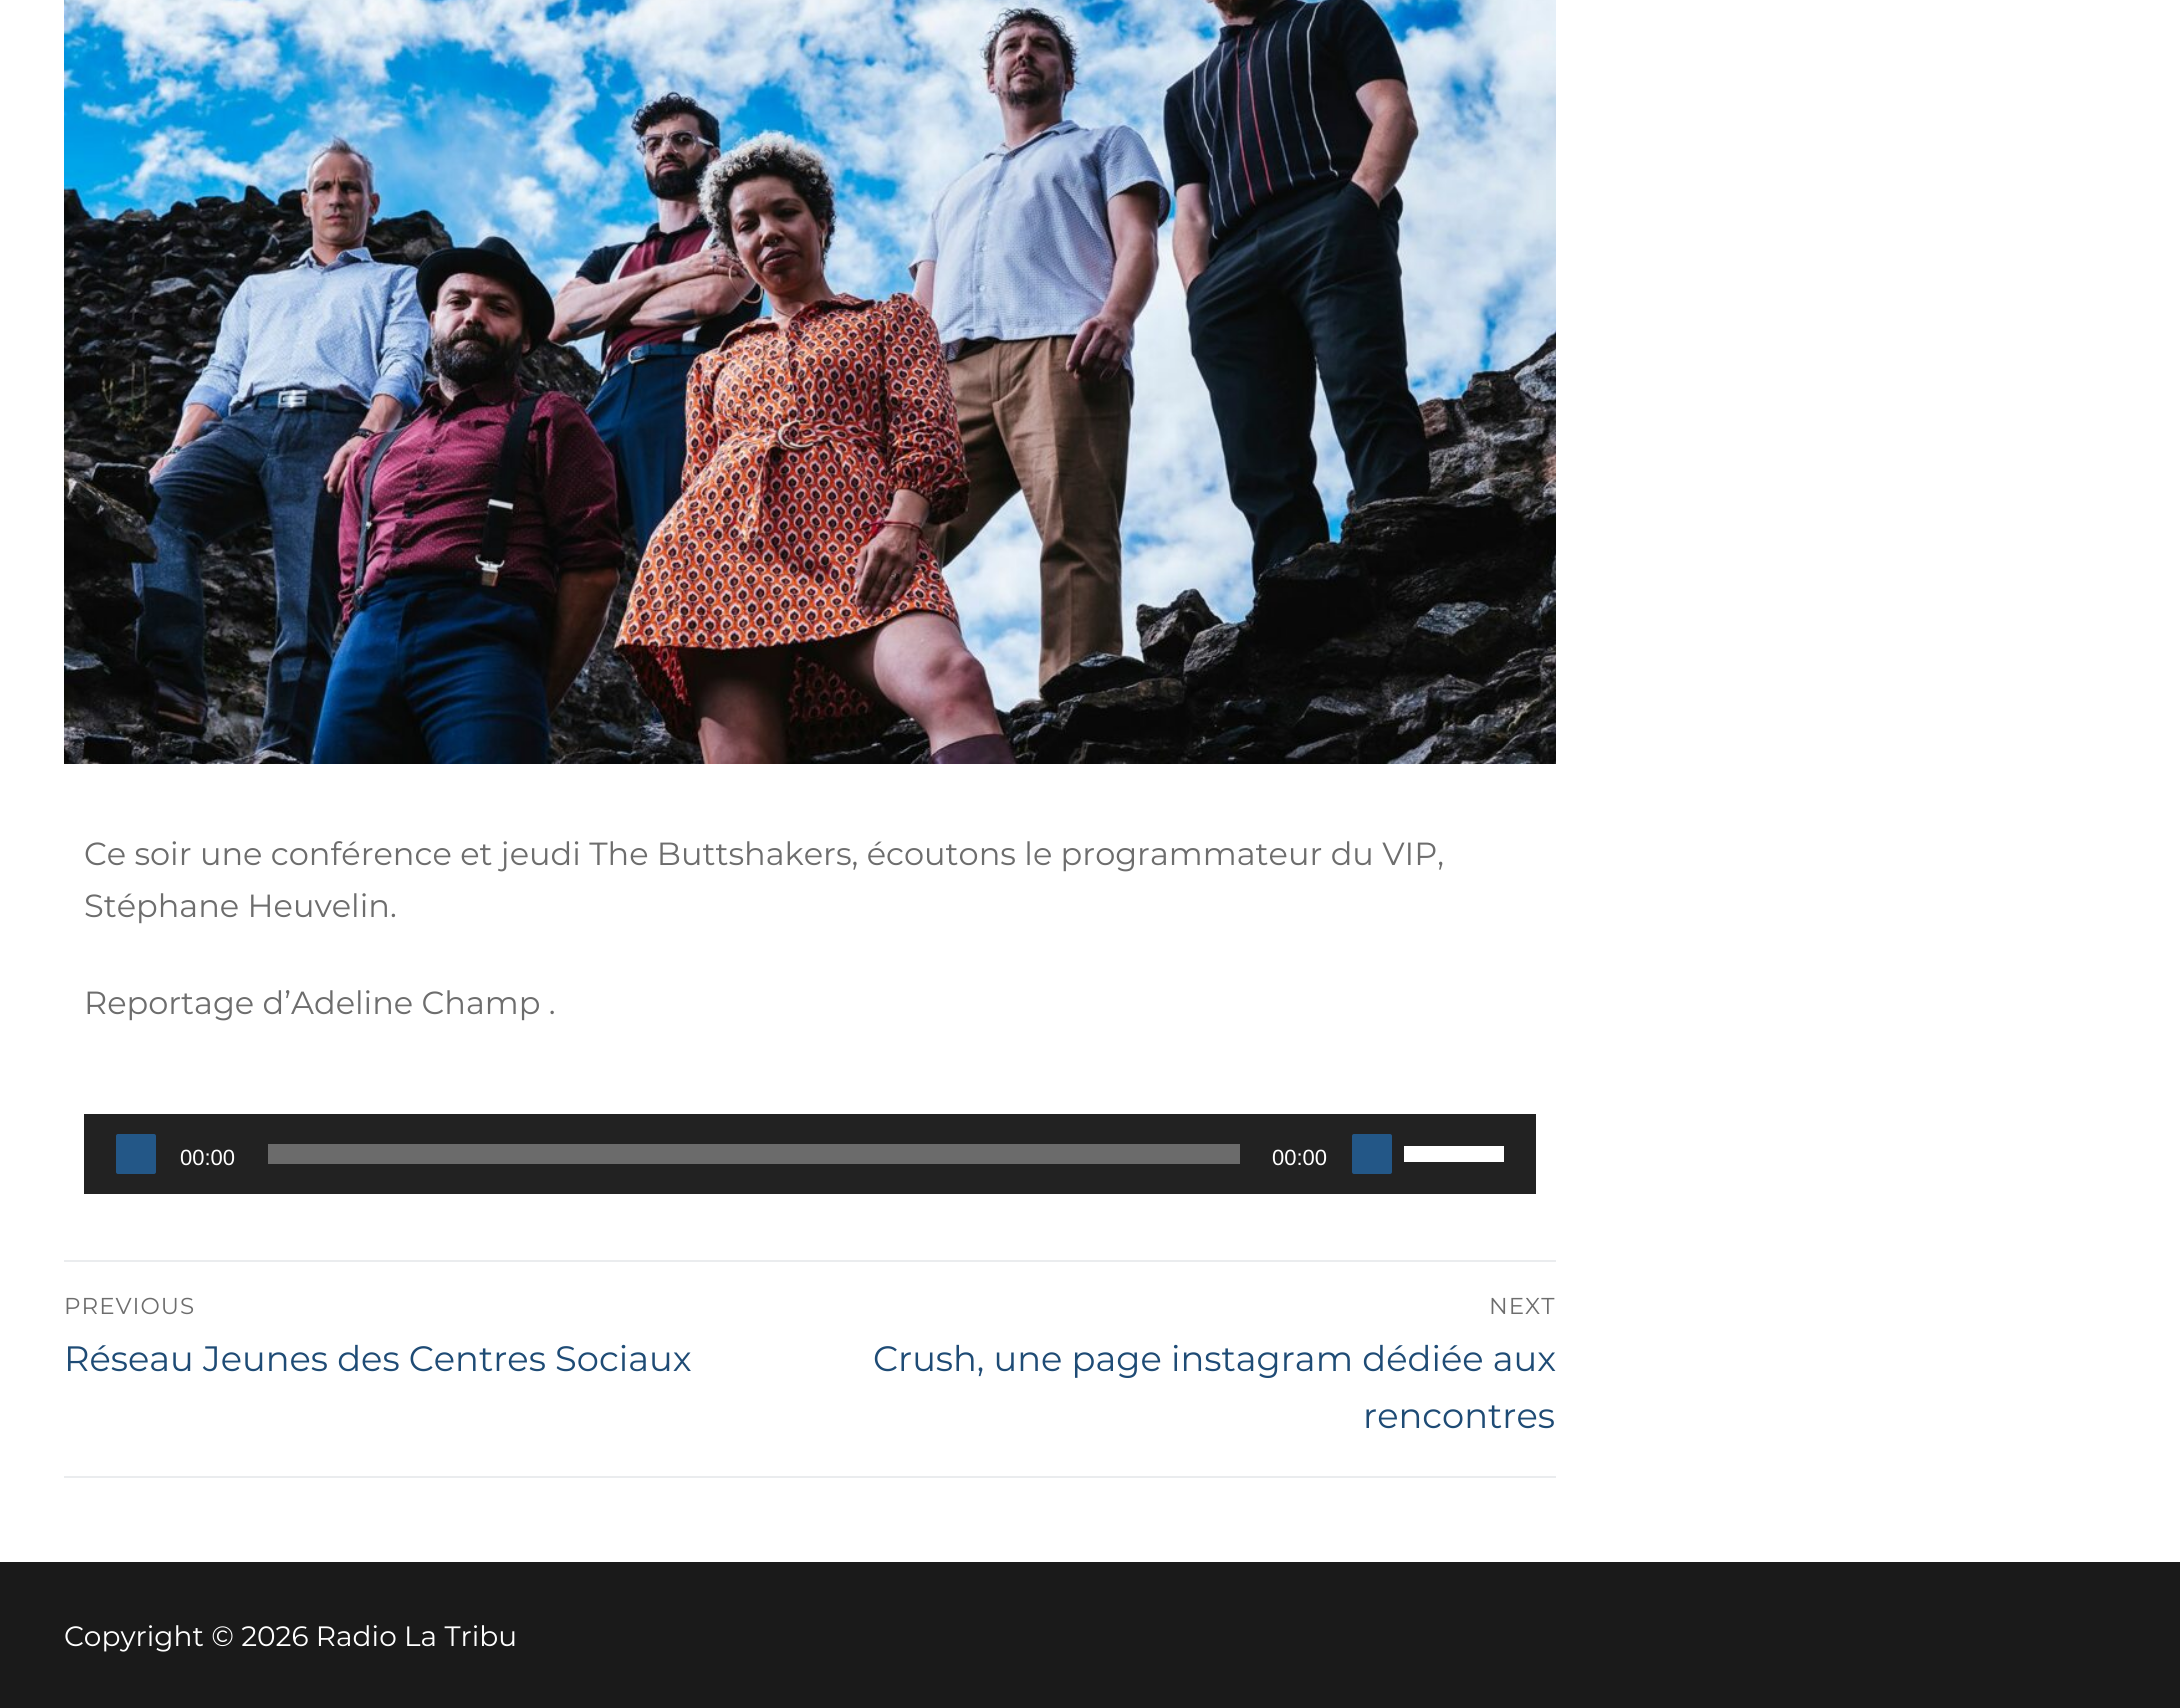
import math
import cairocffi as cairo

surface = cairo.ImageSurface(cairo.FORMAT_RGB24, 2180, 1708)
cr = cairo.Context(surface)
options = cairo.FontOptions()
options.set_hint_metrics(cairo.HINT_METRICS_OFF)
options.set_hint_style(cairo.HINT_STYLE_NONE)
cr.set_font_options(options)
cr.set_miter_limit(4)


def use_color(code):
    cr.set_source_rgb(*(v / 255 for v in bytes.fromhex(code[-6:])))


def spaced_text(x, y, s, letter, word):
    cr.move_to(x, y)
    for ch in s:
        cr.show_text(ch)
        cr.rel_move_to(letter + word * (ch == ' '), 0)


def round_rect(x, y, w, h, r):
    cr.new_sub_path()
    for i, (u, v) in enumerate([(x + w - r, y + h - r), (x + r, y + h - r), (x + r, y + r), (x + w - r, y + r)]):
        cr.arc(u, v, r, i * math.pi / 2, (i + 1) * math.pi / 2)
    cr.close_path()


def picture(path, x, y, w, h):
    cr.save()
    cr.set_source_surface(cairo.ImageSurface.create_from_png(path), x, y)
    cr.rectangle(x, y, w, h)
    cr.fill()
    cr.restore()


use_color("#ffffff")
cr.paint()
picture("img1.png", 64, 0, 1492, 764)
cr.select_font_face("Montserrat")
cr.set_font_size(32)
use_color("#6d6d6d")
cr.move_to(84, 865)
cr.show_text("Ce soir une conférence et jeudi The Buttshakers, écoutons le programmateur du VIP,")
cr.move_to(84, 917)
cr.show_text("Stéphane Heuvelin.")
cr.move_to(84, 1014)
cr.show_text("Reportage d’Adeline Champ .")
use_color("#222222")
cr.rectangle(84, 1114, 1452, 80)
cr.fill()
use_color("#235787")
round_rect(116, 1134, 40, 40, 2)
cr.fill()
cr.select_font_face("Liberation Sans")
cr.set_font_size(22)
use_color("#ffffff")
cr.move_to(180, 1165)
cr.show_text("00:00")
use_color("#6b6b6b")
cr.rectangle(268, 1144, 972, 20)
cr.fill()
use_color("#ffffff")
cr.move_to(1272, 1165)
cr.show_text("00:00")
use_color("#235787")
round_rect(1352, 1134, 40, 40, 2)
cr.fill()
use_color("#ffffff")
cr.rectangle(1404, 1146, 100, 16)
cr.fill()
use_color("#eaecee")
cr.rectangle(64, 1260, 1492, 2)
cr.fill()
cr.rectangle(64, 1476, 1492, 2)
cr.fill()
cr.select_font_face("Montserrat")
cr.set_font_size(23)
use_color("#6d6d6d")
spaced_text(64, 1314, "PREVIOUS", 1, 0)
cr.set_font_size(35.25)
use_color("#1e4b75")
cr.move_to(64, 1371)
cr.show_text("Réseau Jeunes des Centres Sociaux")
cr.set_font_size(23)
use_color("#6d6d6d")
spaced_text(1489, 1314, "NEXT", 1, 0)
cr.set_font_size(35.25)
use_color("#1e4b75")
cr.move_to(873, 1371)
cr.show_text("Crush, une page instagram dédiée aux")
cr.move_to(1363, 1428)
cr.show_text("rencontres")
use_color("#1a1a1a")
cr.rectangle(0, 1562, 2180, 146)
cr.fill()
cr.set_font_size(28)
use_color("#ffffff")
cr.move_to(64, 1646)
cr.show_text("Copyright © 2026 Radio La Tribu")
surface.write_to_png("result.png")
